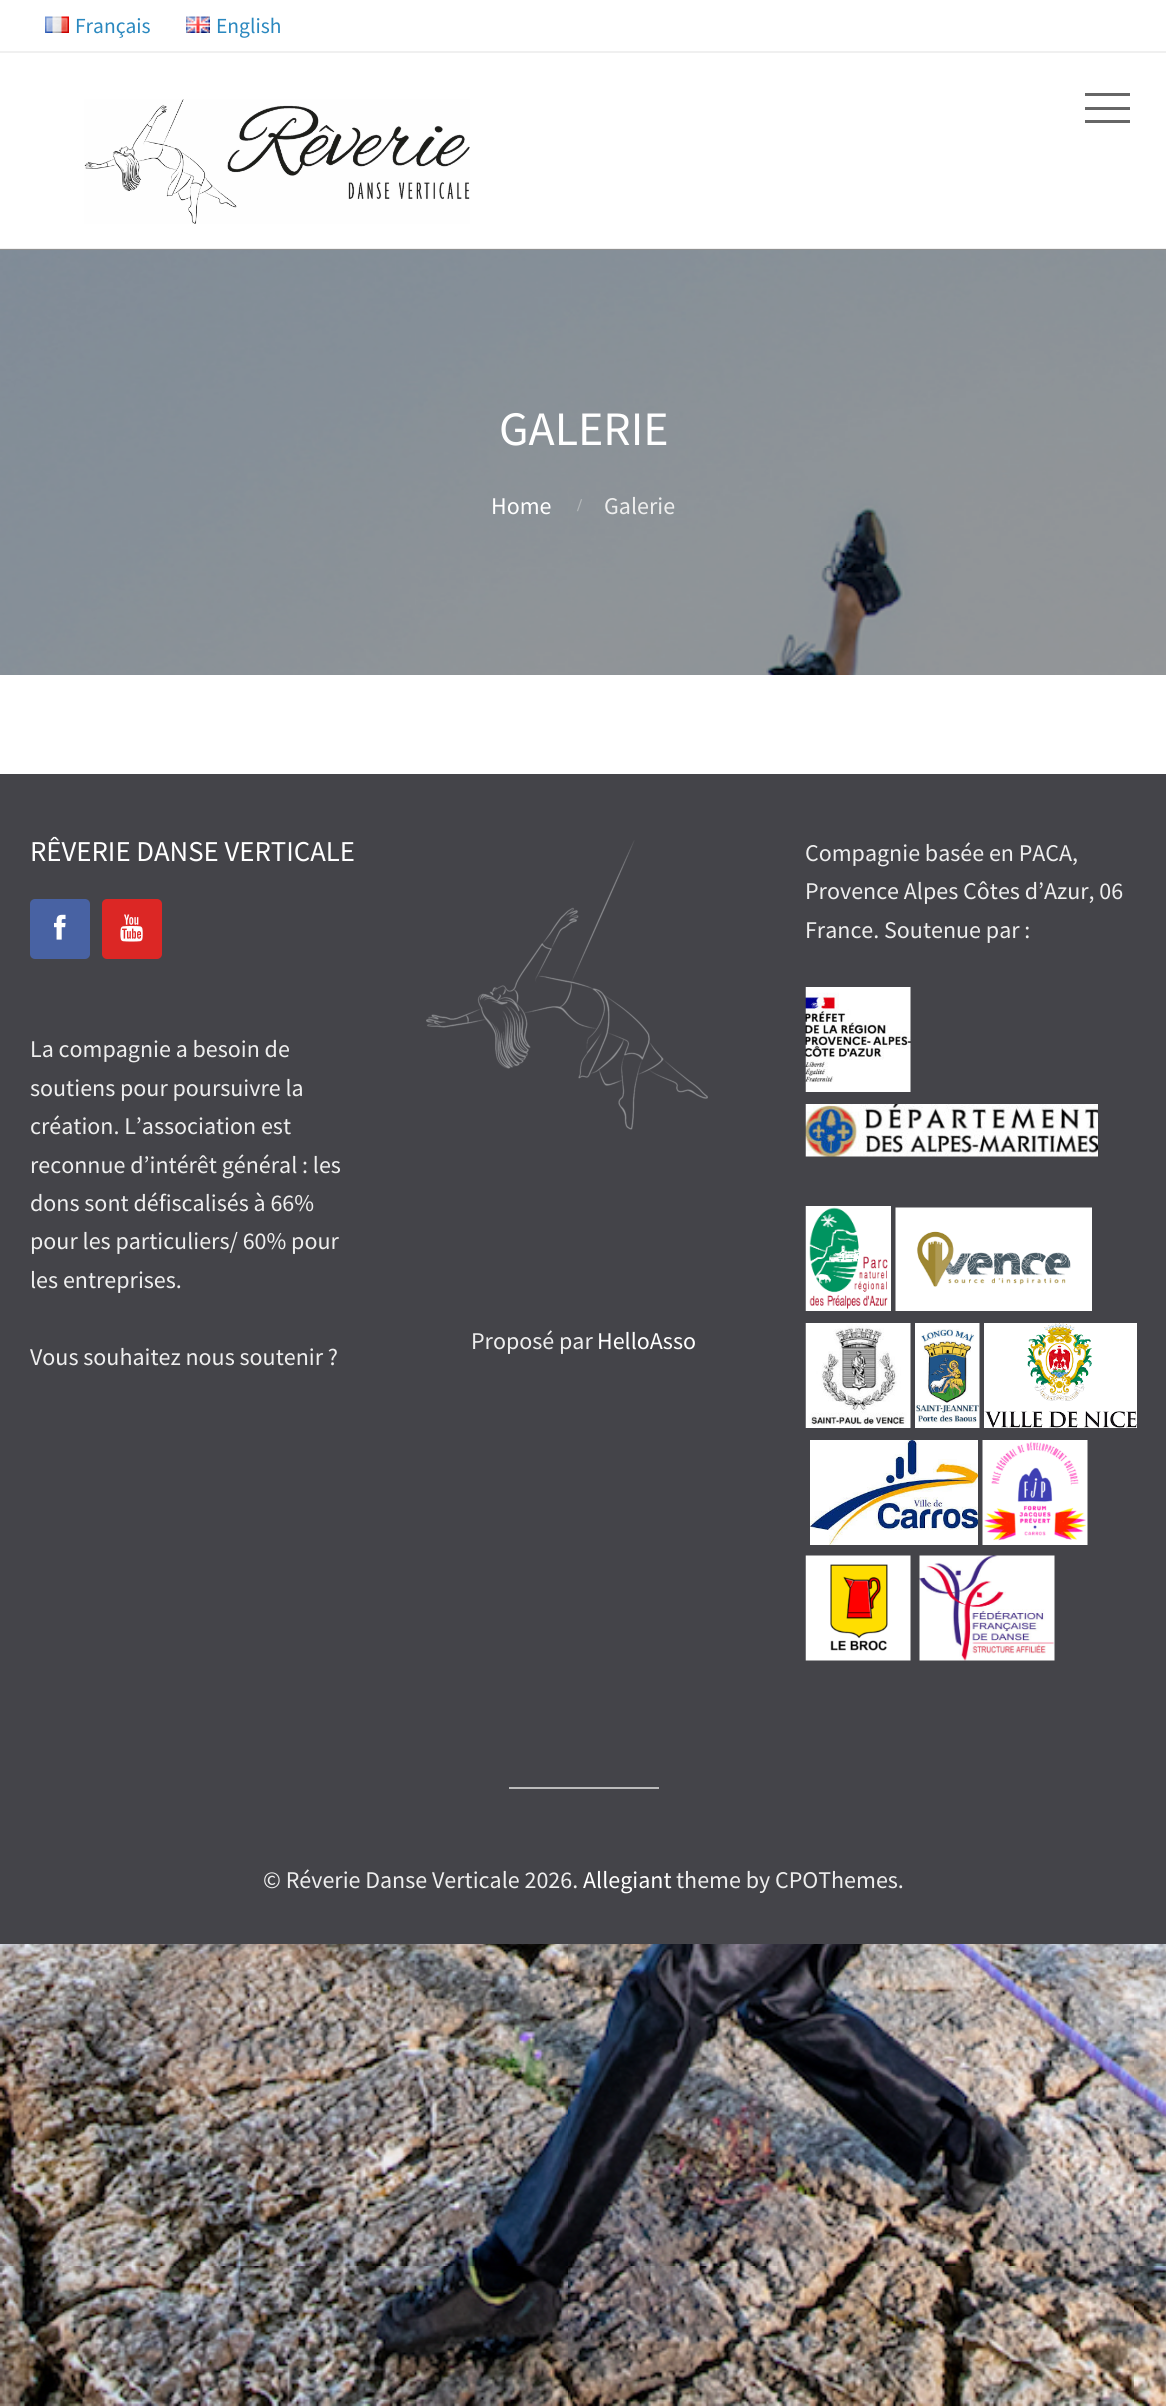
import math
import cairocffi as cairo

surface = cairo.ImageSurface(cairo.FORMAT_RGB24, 1166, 2406)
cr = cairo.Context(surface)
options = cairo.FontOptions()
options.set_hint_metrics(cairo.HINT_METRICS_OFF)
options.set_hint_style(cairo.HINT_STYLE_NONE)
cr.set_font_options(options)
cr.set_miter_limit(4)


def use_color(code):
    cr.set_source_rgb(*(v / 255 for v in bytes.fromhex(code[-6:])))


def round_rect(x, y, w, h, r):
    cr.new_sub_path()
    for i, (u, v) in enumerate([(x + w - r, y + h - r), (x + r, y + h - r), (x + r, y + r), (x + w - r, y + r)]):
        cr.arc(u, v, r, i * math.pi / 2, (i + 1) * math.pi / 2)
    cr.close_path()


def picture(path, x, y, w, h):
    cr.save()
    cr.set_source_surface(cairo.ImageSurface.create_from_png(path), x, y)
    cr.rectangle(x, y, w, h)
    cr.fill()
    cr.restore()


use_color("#ffffff")
cr.paint()
picture("img1.png", 0, 250, 1166, 2156)
use_color("#f0f0f0")
cr.rectangle(0, 51, 1166, 2)
cr.fill()
picture("img2.png", 45, 16, 24, 17)
cr.select_font_face("Source Sans Pro")
cr.set_font_size(21.5)
use_color("#2a88bf")
cr.move_to(75, 33)
cr.show_text("Français")
picture("img3.png", 186, 16, 24, 17)
cr.move_to(216, 33)
cr.show_text("English")
use_color("#f0f0f0")
cr.rectangle(0, 248, 1166, 2)
cr.fill()
picture("img4.png", 84, 99, 386, 125)
use_color("#666666")
cr.rectangle(1085, 93, 45, 3)
cr.fill()
cr.rectangle(1085, 120, 45, 3)
cr.fill()
cr.rectangle(1085, 107, 45, 3)
cr.fill()
cr.set_source_rgba(0, 0, 0, 0.4)
cr.rectangle(0, 249, 1166, 426)
cr.fill()
cr.set_font_size(48)
use_color("#ffffff")
cr.move_to(499, 445)
cr.show_text("GALERIE")
cr.set_font_size(24)
cr.move_to(491, 514)
cr.show_text("Home")
cr.select_font_face("Liberation Serif", cairo.FONT_SLANT_NORMAL, cairo.FONT_WEIGHT_BOLD)
cr.set_font_size(18)
use_color("#b4b8ba")
cr.move_to(577, 511)
cr.show_text("/")
cr.select_font_face("Source Sans Pro")
cr.set_font_size(24)
use_color("#eeeeee")
cr.move_to(604, 514)
cr.show_text("Galerie")
use_color("#ffffff")
cr.rectangle(0, 675, 1166, 99)
cr.fill()
use_color("#444449")
cr.rectangle(0, 774, 1166, 1170)
cr.fill()
cr.set_font_size(28.75)
use_color("#ffffff")
cr.move_to(30, 861)
cr.show_text("RÊVERIE DANSE VERTICALE")
use_color("#4862a3")
round_rect(30, 899, 60, 60, 5)
cr.fill()
picture("img5.png", 54, 914, 12, 26)
use_color("#dc2725")
round_rect(102, 899, 60, 60, 5)
cr.fill()
picture("img6.png", 120, 914, 23, 28)
cr.set_font_size(24)
use_color("#eeeeee")
cr.move_to(30, 1057)
cr.show_text("La compagnie a besoin de")
cr.move_to(30, 1096)
cr.show_text("soutiens pour poursuivre la")
cr.move_to(30, 1134)
cr.show_text("création. L’association est")
cr.move_to(30, 1173)
cr.show_text("reconnue d’intérêt général : les")
cr.move_to(30, 1211)
cr.show_text("dons sont défiscalisés à 66%")
cr.move_to(30, 1249)
cr.show_text("pour les particuliers/ 60% pour")
cr.move_to(30, 1288)
cr.show_text("les entreprises.")
cr.move_to(30, 1365)
cr.show_text("Vous souhaitez nous soutenir ?")
cr.move_to(805, 861)
cr.show_text("Compagnie basée en PACA,")
cr.move_to(805, 899)
cr.show_text("Provence Alpes Côtes d’Azur, 06")
cr.move_to(805, 938)
cr.show_text("France. Soutenue par :")
picture("img7.png", 805, 987, 106, 105)
picture("img8.png", 805, 1104, 293, 53)
picture("img9.png", 805, 1206, 86, 105)
picture("img10.png", 895, 1207, 197, 104)
picture("img11.png", 805, 1323, 106, 105)
picture("img12.png", 915, 1323, 65, 105)
picture("img13.png", 984, 1323, 153, 105)
picture("img14.png", 810, 1440, 168, 105)
picture("img15.png", 982, 1440, 106, 105)
picture("img16.png", 805, 1555, 106, 106)
picture("img17.png", 919, 1555, 136, 106)
picture("img18.png", 426, 840, 282, 290)
cr.move_to(471, 1349)
cr.show_text("Proposé par")
use_color("#ffffff")
cr.move_to(597, 1349)
cr.show_text("HelloAsso")
use_color("#bbbbbb")
cr.rectangle(509, 1787, 150, 2)
cr.fill()
use_color("#eeeeee")
cr.move_to(263, 1888)
cr.show_text("© Réverie Danse Verticale 2026.")
use_color("#ffffff")
cr.move_to(583, 1888)
cr.show_text("Allegiant")
use_color("#eeeeee")
cr.move_to(676, 1888)
cr.show_text("theme by CPOThemes.")
surface.write_to_png("result.png")
